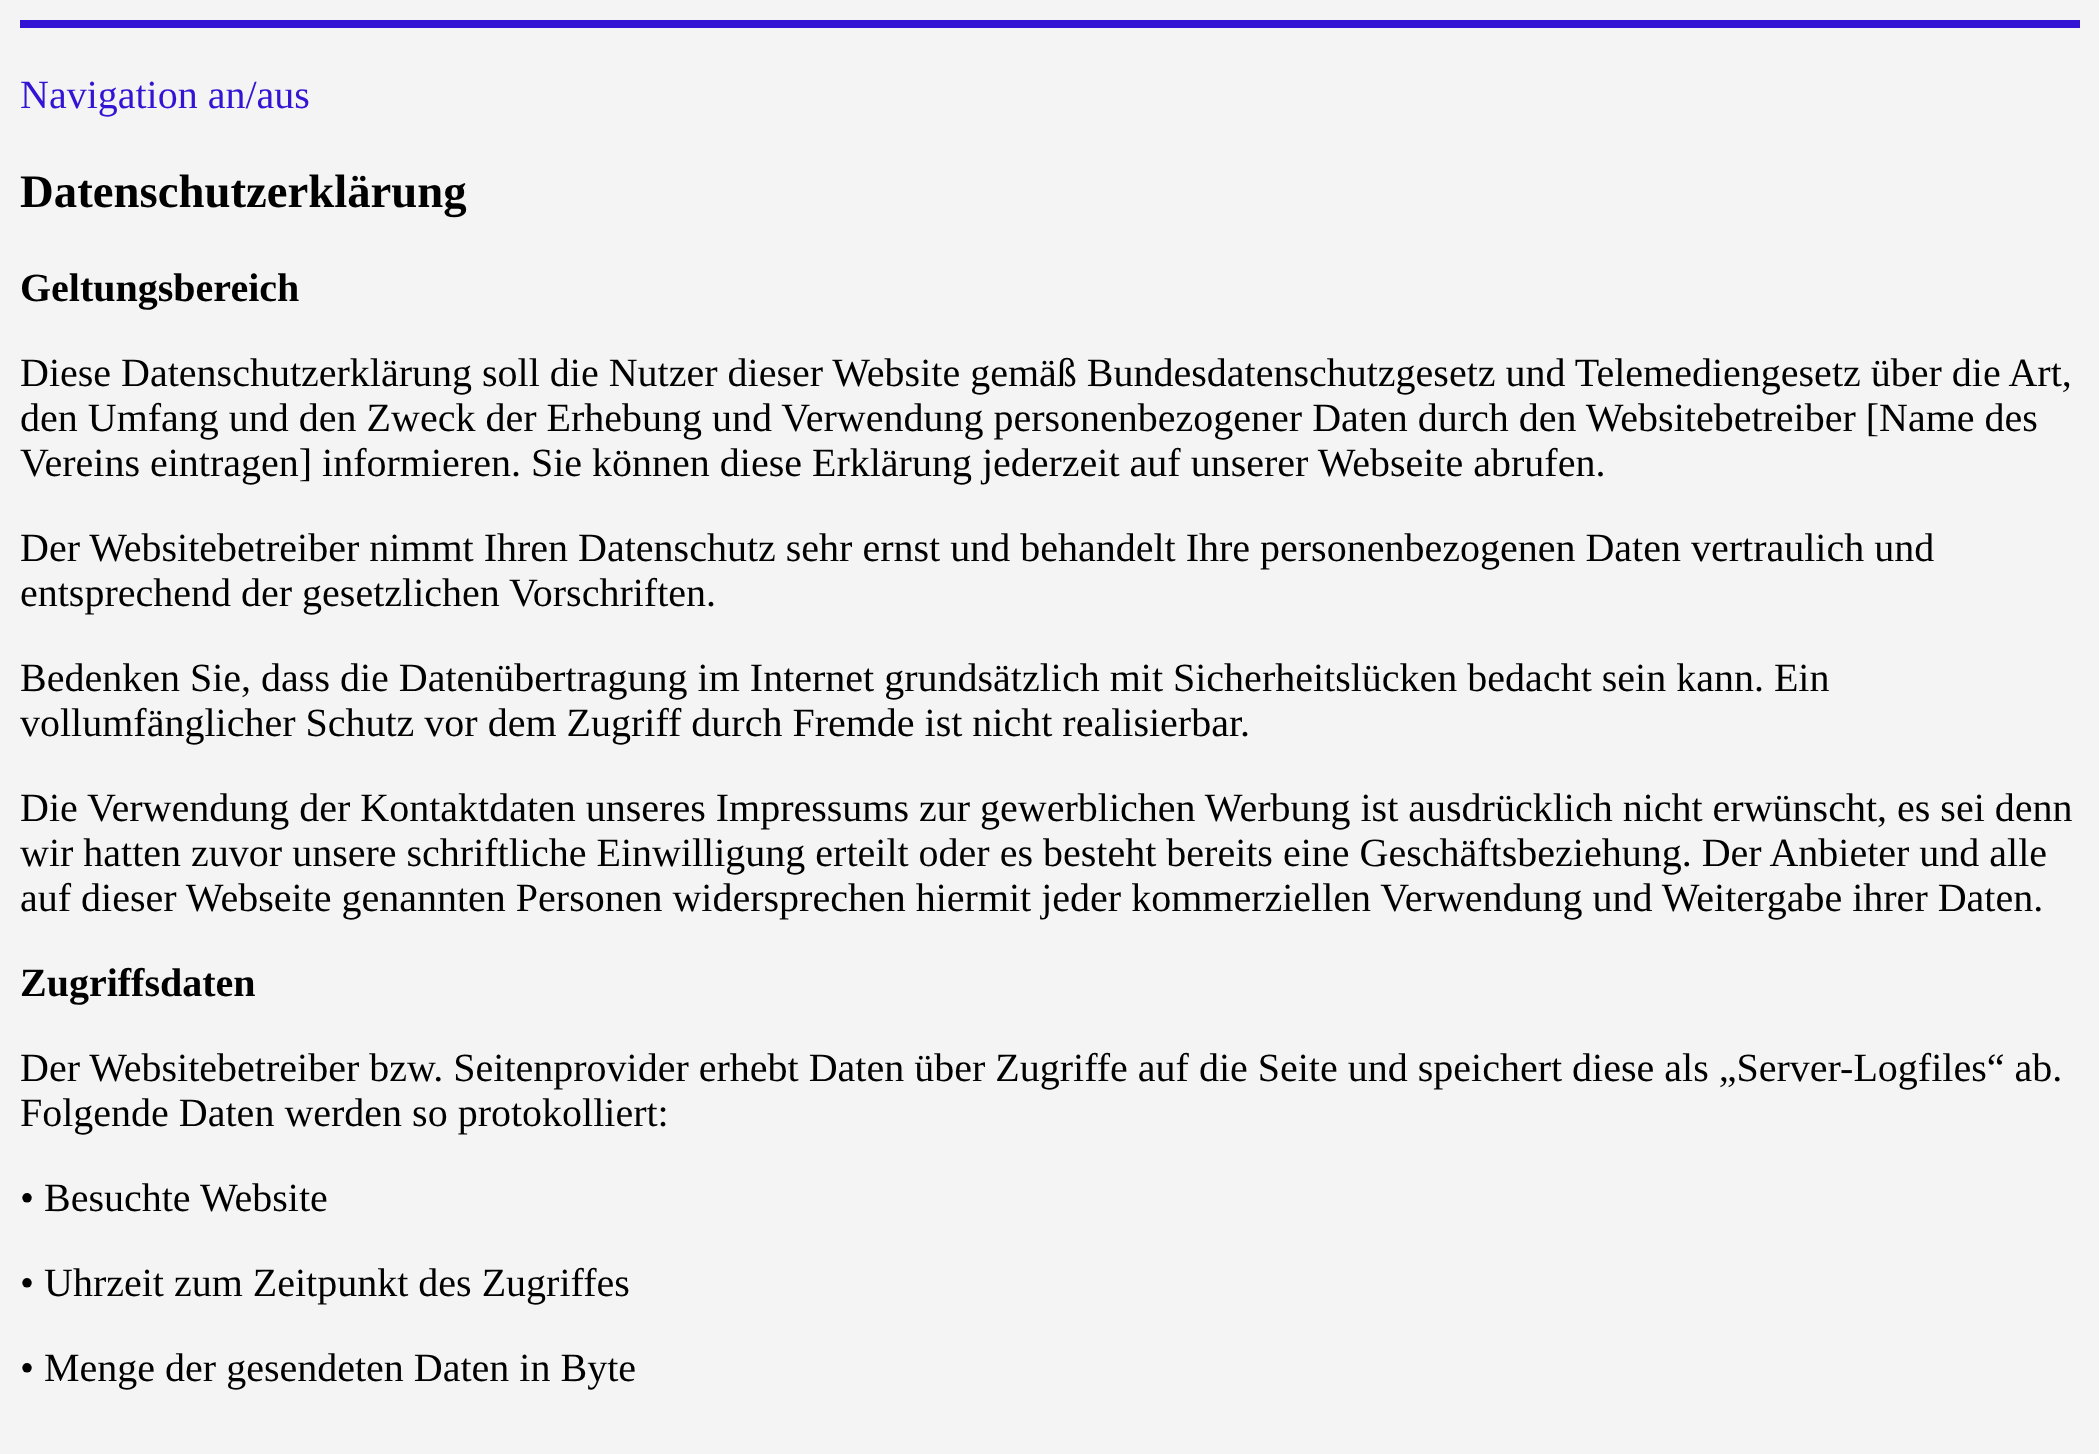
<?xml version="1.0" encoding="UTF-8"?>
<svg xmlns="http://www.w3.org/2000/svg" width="2099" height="1454">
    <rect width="100%" height="100%" fill="#F4F4F4"/>
    <rect x="20" y="20" width="2060" height="8" fill="#3313D4"/>
    <text x="20" y="108" font-family="Liberation Serif" font-size="40" fill="#3313D4">Navigation an/aus</text>
    <text x="20" y="207" font-family="Liberation Serif" font-size="46.75" font-weight="700" fill="#000000">Datenschutzerklärung</text>
    <text x="20" y="301" font-family="Liberation Serif" font-size="40" font-weight="700" fill="#000000">Geltungsbereich</text>
    <text font-family="Liberation Serif" font-size="40" fill="#000000">
        <tspan x="20" y="386">Diese Datenschutzerklärung soll die Nutzer dieser Website gemäß Bundesdatenschutzgesetz und Telemediengesetz über die Art,</tspan>
        <tspan x="20" y="431">den Umfang und den Zweck der Erhebung und Verwendung personenbezogener Daten durch den Websitebetreiber [Name des</tspan>
        <tspan x="20" y="476">Vereins eintragen] informieren. Sie können diese Erklärung jederzeit auf unserer Webseite abrufen.</tspan>
    </text>
    <text font-family="Liberation Serif" font-size="40" fill="#000000">
        <tspan x="20" y="561">Der Websitebetreiber nimmt Ihren Datenschutz sehr ernst und behandelt Ihre personenbezogenen Daten vertraulich und</tspan>
        <tspan x="20" y="606">entsprechend der gesetzlichen Vorschriften.</tspan>
    </text>
    <text font-family="Liberation Serif" font-size="40" fill="#000000">
        <tspan x="20" y="691">Bedenken Sie, dass die Datenübertragung im Internet grundsätzlich mit Sicherheitslücken bedacht sein kann. Ein</tspan>
        <tspan x="20" y="736">vollumfänglicher Schutz vor dem Zugriff durch Fremde ist nicht realisierbar.</tspan>
    </text>
    <text font-family="Liberation Serif" font-size="40" fill="#000000">
        <tspan x="20" y="821">Die Verwendung der Kontaktdaten unseres Impressums zur gewerblichen Werbung ist ausdrücklich nicht erwünscht, es sei denn</tspan>
        <tspan x="20" y="866">wir hatten zuvor unsere schriftliche Einwilligung erteilt oder es besteht bereits eine Geschäftsbeziehung. Der Anbieter und alle</tspan>
        <tspan x="20" y="911">auf dieser Webseite genannten Personen widersprechen hiermit jeder kommerziellen Verwendung und Weitergabe ihrer Daten.</tspan>
    </text>
    <text x="20" y="996" font-family="Liberation Serif" font-size="40" font-weight="700" fill="#000000">Zugriffsdaten</text>
    <text font-family="Liberation Serif" font-size="40" fill="#000000">
        <tspan x="20" y="1081">Der Websitebetreiber bzw. Seitenprovider erhebt Daten über Zugriffe auf die Seite und speichert diese als „Server-Logfiles“ ab.</tspan>
        <tspan x="20" y="1126">Folgende Daten werden so protokolliert:</tspan>
    </text>
    <text x="20" y="1211" font-family="Liberation Serif" font-size="40" fill="#000000">• Besuchte Website</text>
    <text x="20" y="1296" font-family="Liberation Serif" font-size="40" fill="#000000">• Uhrzeit zum Zeitpunkt des Zugriffes</text>
    <text x="20" y="1381" font-family="Liberation Serif" font-size="40" fill="#000000">• Menge der gesendeten Daten in Byte</text>
</svg>
